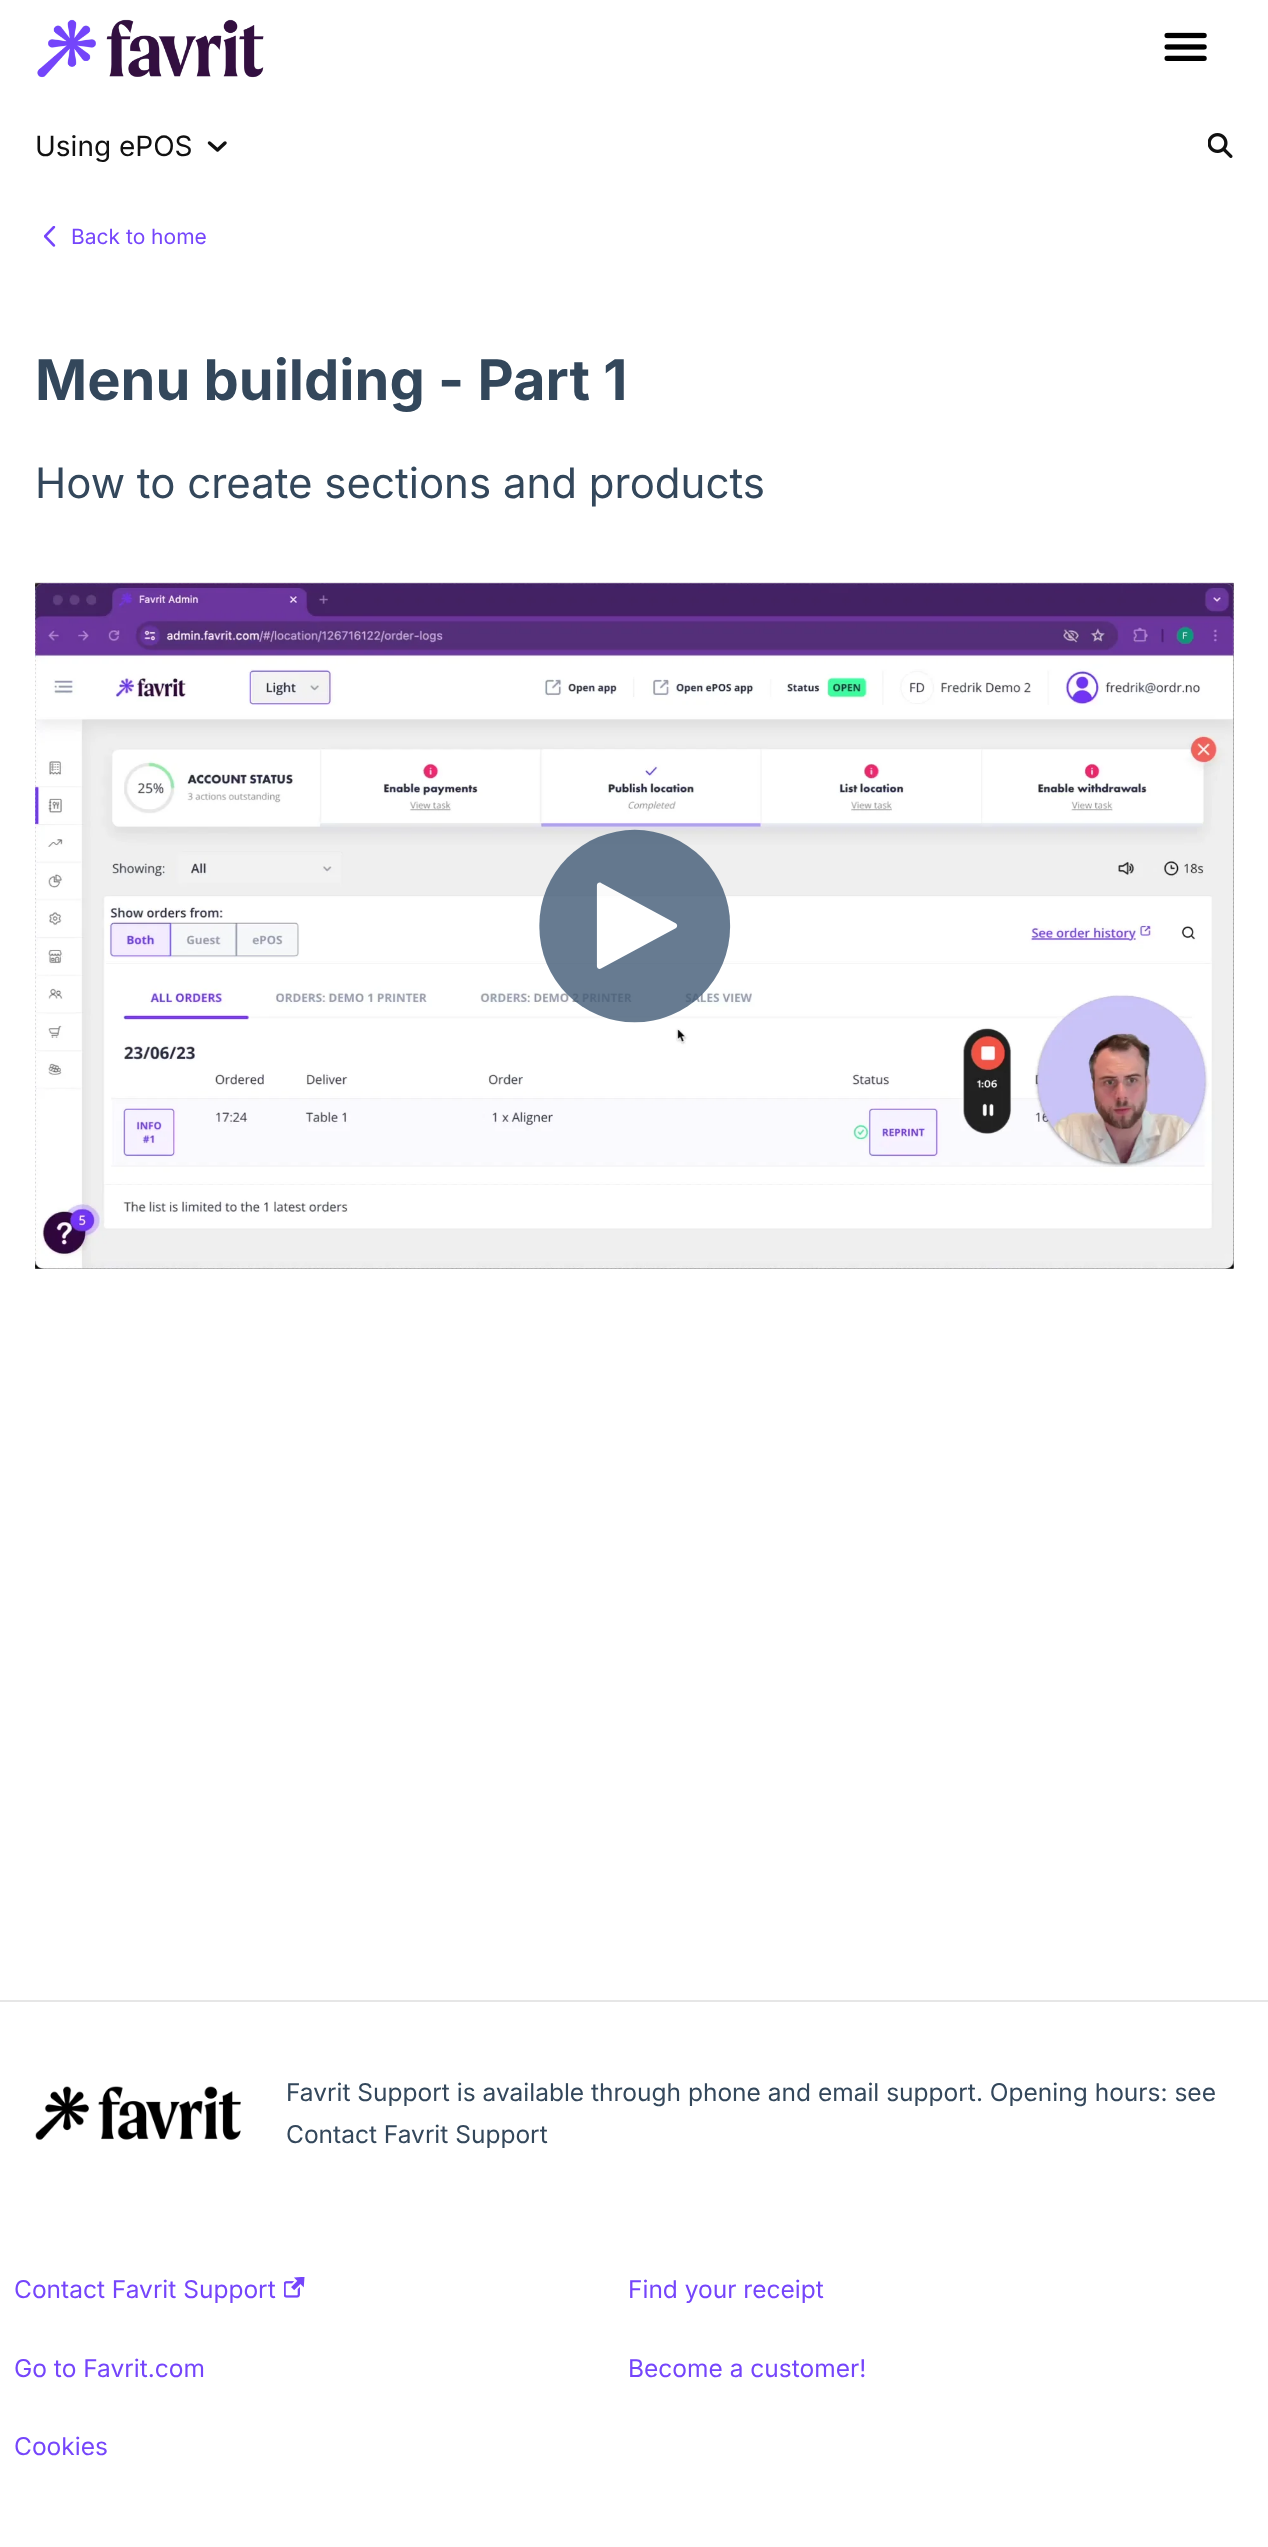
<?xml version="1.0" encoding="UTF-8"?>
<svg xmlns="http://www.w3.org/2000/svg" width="1268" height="2547">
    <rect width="100%" height="100%" fill="#FFFFFF"/>
    <image x="37" y="19" width="227" height="59" href="img_01.png"/>
    <image x="1164" y="32" width="43" height="29" href="img_02.png"/>
    <text x="35" y="156" font-family="Inter" font-size="28" fill="#111111">Using ePOS</text>
    <path d="M 225 143 L 217.5 150 L 209.5 143" fill="none" stroke="#111111" stroke-width="3.5" stroke-linecap="round" stroke-linejoin="round"/>
    <image x="1208" y="133" width="25" height="25" href="img_03.png"/>
    <image x="44" y="226" width="12" height="21" href="img_04.png"/>
    <text x="71" y="244" font-family="Inter" font-size="21" fill="#7545FB">Back to home</text>
    <text x="35" y="400" font-family="Inter" font-size="56" font-weight="700" fill="#33475B">Menu building - Part 1</text>
    <text x="35" y="498" font-family="Inter" font-size="42" fill="#33475B">How to create sections and products</text>
    <image x="35" y="582" width="1199" height="687" href="img_05.png"/>
    <rect x="0" y="2000" width="1268" height="2" fill="#E6E6E6"/>
    <image x="35" y="2086" width="206" height="54" href="img_06.png"/>
    <text font-family="Inter" font-size="24.5" fill="#33475B">
        <tspan x="286" y="2101">Favrit Support is available through phone and email support. Opening hours: see</tspan>
        <tspan x="286" y="2143">Contact Favrit Support</tspan>
    </text>
    <text x="14" y="2298" font-family="Inter" font-size="24.5" fill="#7545FB">Contact Favrit Support</text>
    <image x="284" y="2277" width="21" height="21" href="img_07.png"/>
    <text x="628" y="2298" font-family="Inter" font-size="24.5" fill="#7545FB">Find your receipt</text>
    <text x="14" y="2377" font-family="Inter" font-size="24.5" fill="#7545FB">Go to Favrit.com</text>
    <text x="628" y="2377" font-family="Inter" font-size="24.5" fill="#7545FB">Become a customer!</text>
    <text x="14" y="2455" font-family="Inter" font-size="24.5" fill="#7545FB">Cookies</text>
</svg>
